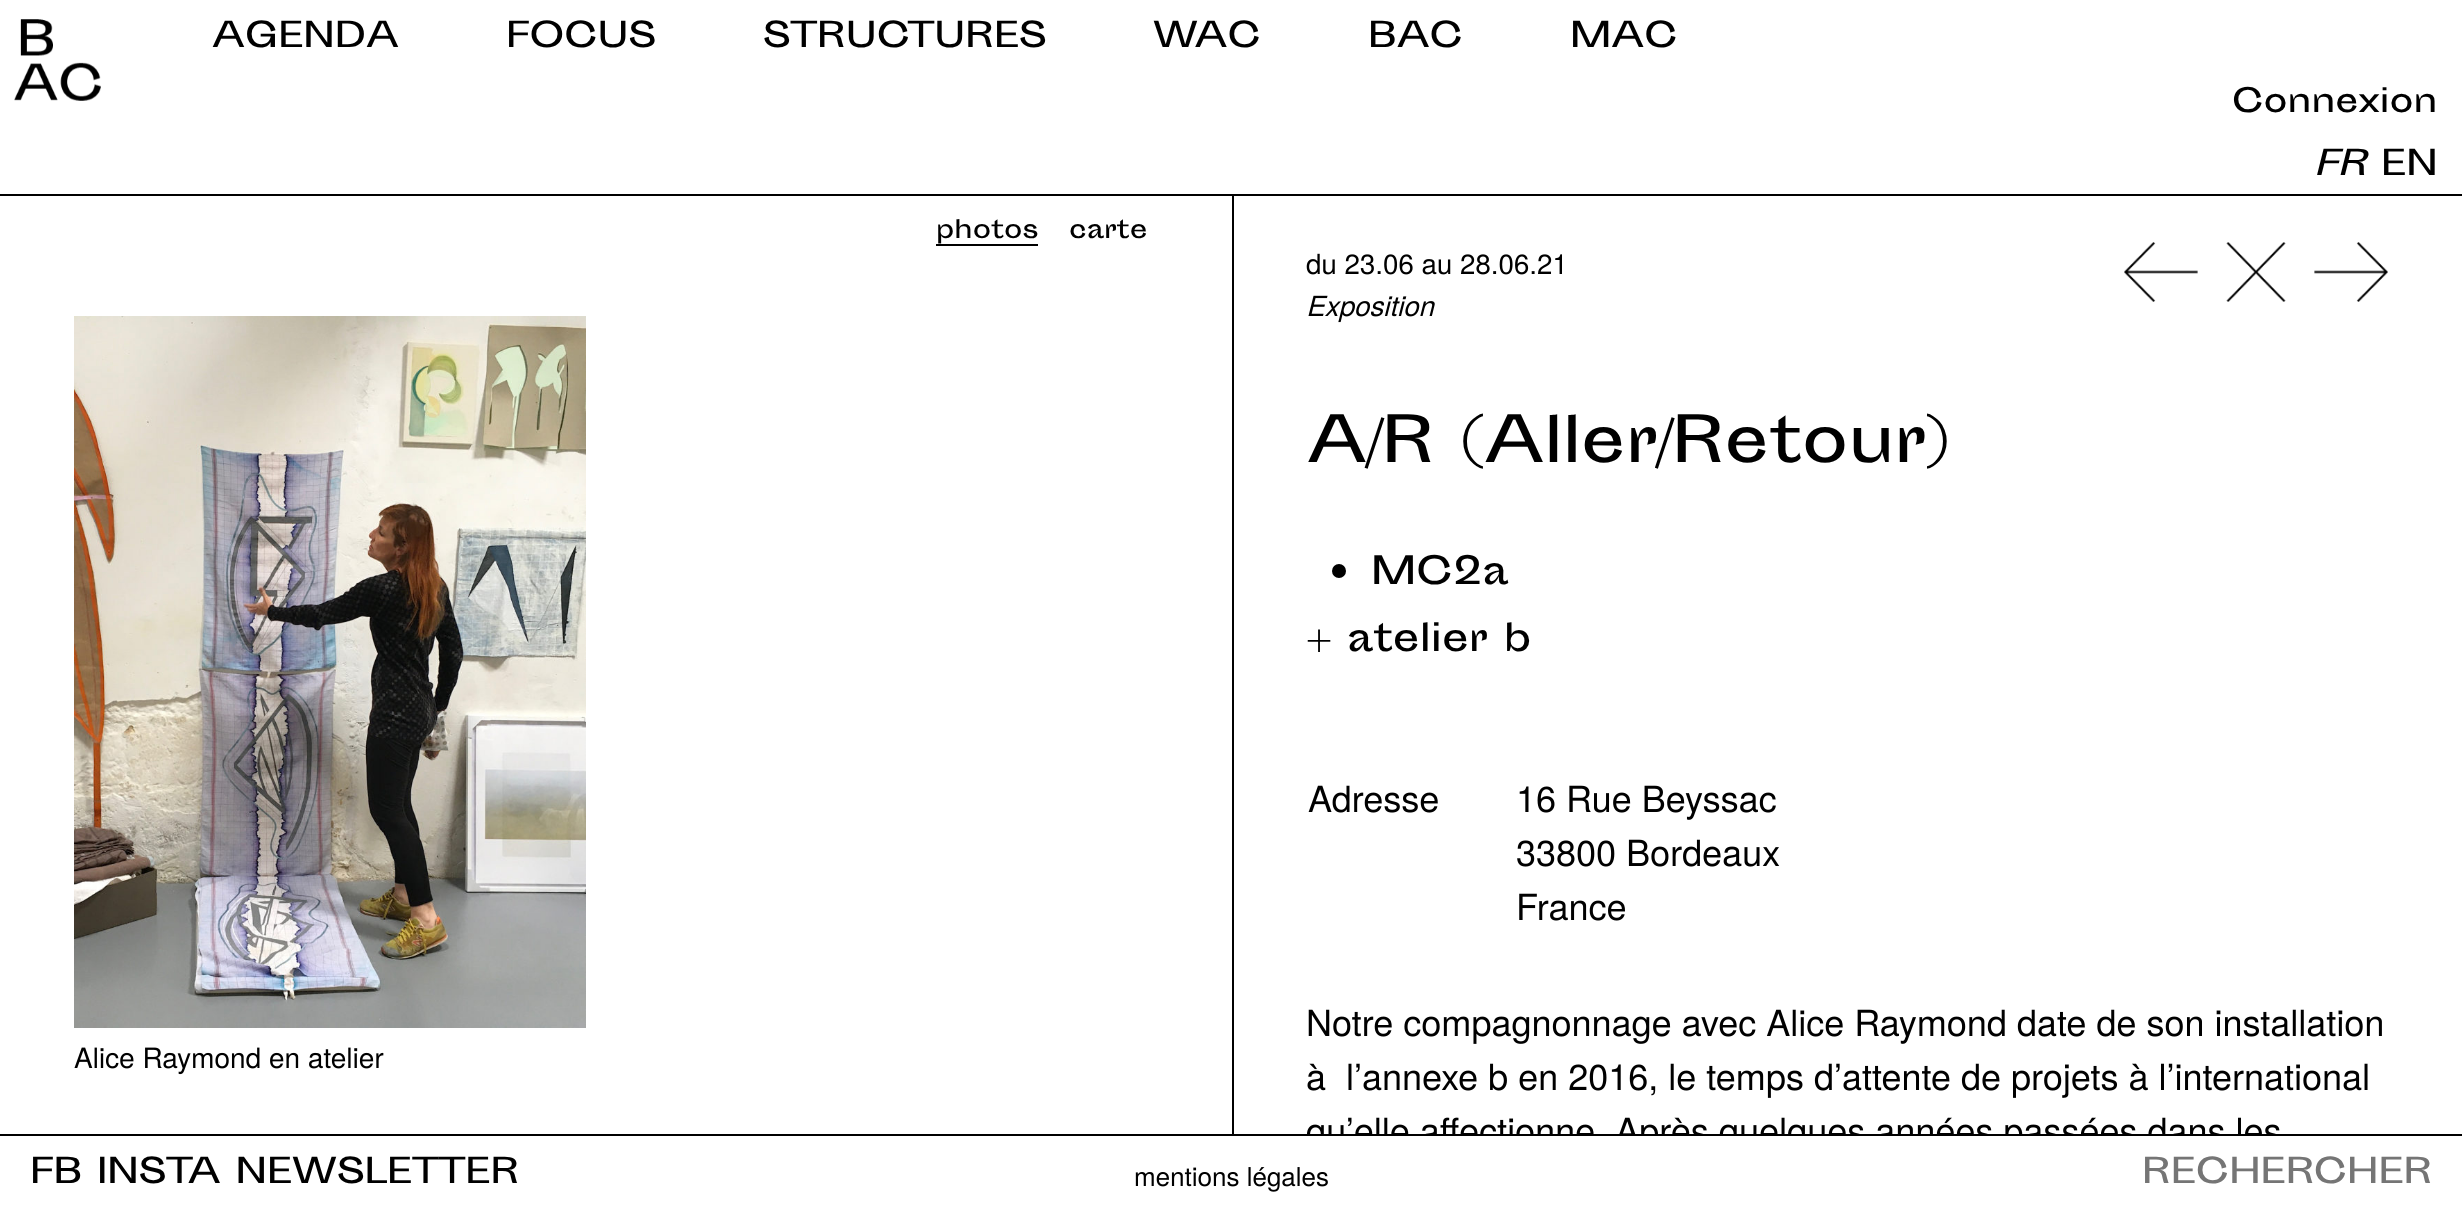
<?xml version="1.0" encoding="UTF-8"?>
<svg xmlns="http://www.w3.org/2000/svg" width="2462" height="1216">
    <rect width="100%" height="100%" fill="#FFFFFF"/>
    <rect x="1232" y="194" width="2" height="940" fill="#000000"/>
    <rect x="0" y="194" width="2462" height="2" fill="#000000"/>
    <image x="14" y="19" width="87" height="82" href="img_01.png"/>
    <text x="212" y="47" font-family="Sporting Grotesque" font-size="33.8" font-weight="500" fill="#000000">AGENDA</text>
    <text x="506" y="47" font-family="Sporting Grotesque" font-size="33.8" font-weight="500" fill="#000000">FOCUS</text>
    <text x="763" y="47" font-family="Sporting Grotesque" font-size="33.8" font-weight="500" fill="#000000">STRUCTURES</text>
    <text x="1153" y="47" font-family="Sporting Grotesque" font-size="33.8" font-weight="500" fill="#000000">WAC</text>
    <text x="1368" y="47" font-family="Sporting Grotesque" font-size="33.8" font-weight="500" fill="#000000">BAC</text>
    <text x="1570" y="47" font-family="Sporting Grotesque" font-size="33.8" font-weight="500" fill="#000000">MAC</text>
    <text x="2232" y="112" font-family="Sporting Grotesque" font-size="32" font-weight="500" fill="#000000">Connexion</text>
    <text x="2314" y="175" font-family="Sporting Grotesque" font-size="33.8" font-weight="500" font-style="italic" fill="#000000">FR</text>
    <text x="2381" y="175" font-family="Sporting Grotesque" font-size="33.8" font-weight="500" fill="#000000">EN</text>
    <rect x="936" y="244" width="102" height="2" fill="#000000"/>
    <text x="936" y="238" font-family="Sporting Grotesque" font-size="24.5" font-weight="500" fill="#000000">photos</text>
    <text x="1069" y="238" font-family="Sporting Grotesque" font-size="24.5" font-weight="500" fill="#000000">carte</text>
    <image x="74" y="316" width="512" height="712" href="img_02.png"/>
    <image x="74" y="1047" width="310" height="28" href="img_03.png"/>
    <image x="1306" y="253" width="256" height="22" href="img_04.png"/>
    <image x="1308" y="295" width="127" height="28" href="img_05.png"/>
    <image x="2124" y="242" width="74" height="60" href="img_06.png"/>
    <image x="2226" y="242" width="60" height="60" href="img_07.png"/>
    <image x="2314" y="242" width="74" height="60" href="img_08.png"/>
    <text x="1307" y="462" font-family="Sporting Grotesque" font-size="61.5" font-weight="500" fill="#000000">A/R (Aller/Retour)</text>
    <circle cx="1339" cy="571" r="7" fill="#000000"/>
    <text x="1371" y="584" font-family="Sporting Grotesque" font-size="37" font-weight="500" fill="#000000">MC2a</text>
    <text x="1307" y="651" font-family="Sporting Grotesque" font-size="37" font-weight="500" fill="#000000">+ atelier b</text>
    <image x="1308" y="785" width="130" height="28" href="img_09.png"/>
    <image x="1519" y="785" width="257" height="35" href="img_10.png"/>
    <image x="1517" y="839" width="263" height="28" href="img_11.png"/>
    <image x="1519" y="893" width="106" height="28" href="img_12.png"/>
    <image x="1308" y="1009" width="1074" height="35" href="img_13.png"/>
    <image x="1307" y="1063" width="1061" height="35" href="img_14.png"/>
    <image x="1307" y="1117" width="973" height="17" href="img_15.png"/>
    <rect x="0" y="1134" width="2462" height="2" fill="#000000"/>
    <text x="30" y="1183" font-family="Sporting Grotesque" font-size="33.8" font-weight="500" fill="#000000">FB INSTA NEWSLETTER</text>
    <image x="1135" y="1167" width="193" height="25" href="img_16.png"/>
    <text x="2142" y="1183" font-family="Sporting Grotesque" font-size="33.8" font-weight="500" fill="#757575">RECHERCHER</text>
</svg>
